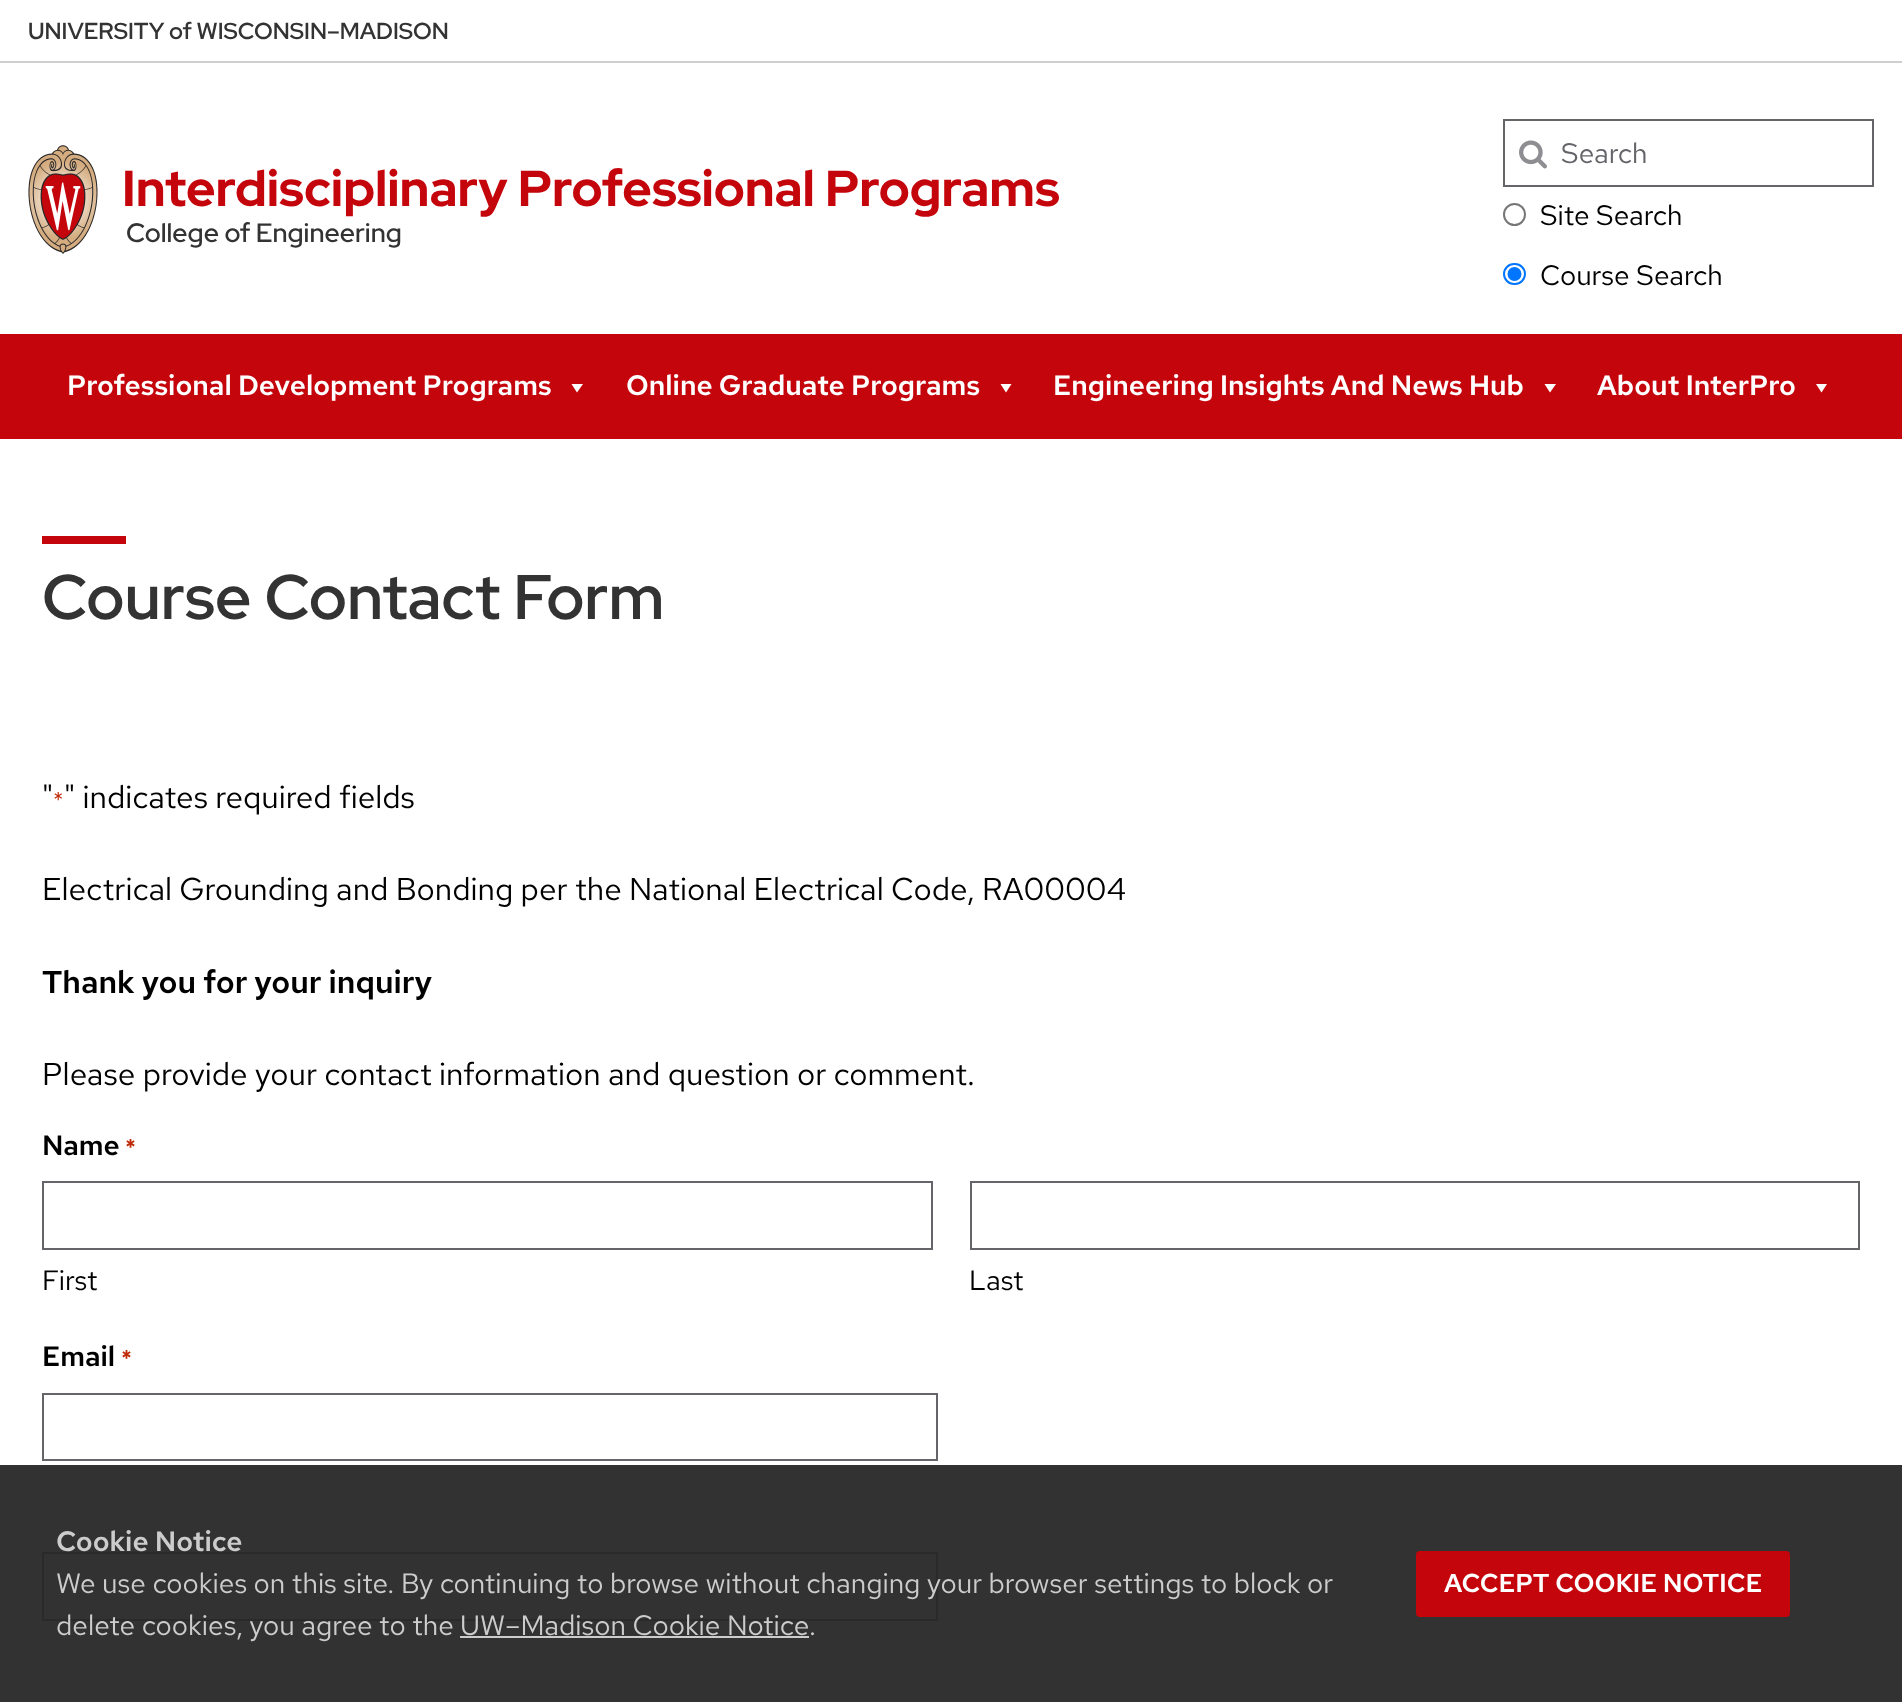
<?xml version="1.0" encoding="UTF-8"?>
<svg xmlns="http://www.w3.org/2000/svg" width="1902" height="1702">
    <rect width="100%" height="100%" fill="#FFFFFF"/>
    <rect x="0" y="1465" width="1902" height="237" fill="#333233"/>
    <rect x="0" y="61" width="1902" height="2" fill="#CFCFCF"/>
    <text x="28" y="39" font-family="'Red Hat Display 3'" font-size="23.1" font-weight="600" fill="#333333">UNIVERSITY of WISCONSIN–MADISON</text>
    <image x="28" y="145" width="70" height="109" href="img_01.png"/>
    <text x="122" y="206" font-family="Red Hat Display" font-size="50.4" font-weight="800" fill="#C5050C">Interdisciplinary Professional Programs</text>
    <text x="126" y="242" font-family="Red Hat Display" font-size="26.6" font-weight="600" fill="#333333">College of Engineering</text>
    <image x="1519" y="140" width="28" height="29" href="img_02.png"/>
    <rect x="1504" y="120" width="369" height="66" fill="none" stroke="#646569" stroke-width="2"/>
    <text x="1561" y="163" font-family="Red Hat Text" font-size="28" fill="#646569">Search</text>
    <circle cx="1514.5" cy="214.5" r="10.5" fill="none" stroke="#767676" stroke-width="2"/>
    <text x="1540" y="225" font-family="Red Hat Text" font-size="28" fill="#000000">Site Search</text>
    <rect x="1504" y="264" width="21" height="20" rx="10" fill="none" stroke="#0075FF" stroke-width="2"/>
    <circle cx="1514.5" cy="274" r="7" fill="#0075FF"/>
    <text x="1540" y="285" font-family="Red Hat Text" font-size="28" fill="#000000">Course Search</text>
    <rect x="0" y="334" width="1902" height="105" fill="#C5050C"/>
    <text x="67" y="395" font-family="Red Hat Text" font-size="28" font-weight="600" fill="#FFFFFF">Professional Development Programs</text>
    <path d="M 583 384 L 577 392.5 L 571.5 384 Z" fill="#FFFFFF"/>
    <text x="626" y="395" font-family="Red Hat Text" font-size="28" font-weight="600" fill="#FFFFFF">Online Graduate Programs</text>
    <path d="M 1011.5 384 L 1006 392.5 L 1000.5 384 Z" fill="#FFFFFF"/>
    <text x="1053" y="395" font-family="Red Hat Text" font-size="28" font-weight="600" fill="#FFFFFF">Engineering Insights And News Hub</text>
    <path d="M 1556 384 L 1550 392.5 L 1544.5 384 Z" fill="#FFFFFF"/>
    <text x="1597" y="395" font-family="Red Hat Text" font-size="28" font-weight="600" fill="#FFFFFF">About InterPro</text>
    <path d="M 1827 384 L 1821.5 392.5 L 1816 384 Z" fill="#FFFFFF"/>
    <rect x="42" y="536" width="84" height="8" fill="#C5050C"/>
    <text x="42" y="619" font-family="'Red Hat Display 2'" font-size="63" font-weight="600" fill="#333333">Course Contact Form</text>
    <text x="42" y="808" font-family="Red Hat Text" font-size="31.5" fill="#000000">"</text>
    <text x="53" y="808" font-family="Red Hat Text" font-size="23" fill="#C02B0A">*</text>
    <text x="64" y="808" font-family="Red Hat Text" font-size="31.5" fill="#000000">" indicates required fields</text>
    <text x="42" y="900" font-family="Red Hat Text" font-size="31.5" fill="#000000">Electrical Grounding and Bonding per the National Electrical Code, RA00004</text>
    <text x="42" y="993" font-family="Red Hat Text" font-size="31.5" font-weight="600" fill="#000000">Thank you for your inquiry</text>
    <text x="42" y="1085" font-family="Red Hat Text" font-size="31.5" fill="#000000">Please provide your contact information and question or comment.</text>
    <text x="42" y="1155" font-family="Red Hat Text" font-size="28" font-weight="600" fill="#000000">Name</text>
    <text x="125" y="1155" font-family="Red Hat Text" font-size="23" font-weight="600" fill="#C02B0A">*</text>
    <rect x="43" y="1182" width="889" height="67" fill="none" stroke="#646569" stroke-width="2"/>
    <text x="42" y="1290" font-family="Red Hat Text" font-size="28" fill="#000000">First</text>
    <rect x="971" y="1182" width="888" height="67" fill="none" stroke="#646569" stroke-width="2"/>
    <text x="969" y="1290" font-family="Red Hat Text" font-size="28" fill="#000000">Last</text>
    <text x="42" y="1366" font-family="Red Hat Text" font-size="28" font-weight="600" fill="#000000">Email</text>
    <text x="121" y="1366" font-family="Red Hat Text" font-size="23" font-weight="600" fill="#C02B0A">*</text>
    <rect x="43" y="1394" width="894" height="66" fill="none" stroke="#646569" stroke-width="2"/>
    <rect x="43" y="1553" width="894" height="67" fill="none" stroke="#2B2A2B" stroke-width="2"/>
    <text x="56" y="1551" font-family="Red Hat Text" font-size="28" font-weight="600" fill="#CCCCCC">Cookie Notice</text>
    <text font-family="Red Hat Text" font-size="28" fill="#CCCCCC">
        <tspan x="56" y="1593">We use cookies on this site. By continuing to browse without changing your browser settings to block or</tspan>
        <tspan x="56" y="1635">delete cookies, you agree to the</tspan>
    </text>
    <text x="460" y="1635" font-family="Red Hat Text" font-size="28" fill="#CCCCCC">UW–Madison Cookie Notice</text>
    <rect x="460" y="1636" width="349" height="2" fill="#CCCCCC"/>
    <text x="809" y="1635" font-family="Red Hat Text" font-size="28" fill="#CCCCCC">.</text>
    <rect x="1416" y="1551" width="374" height="66" rx="4" fill="#C5050C"/>
    <text x="1444" y="1592" font-family="Red Hat Text" font-size="25.9" font-weight="600" fill="#FFFFFF">ACCEPT COOKIE NOTICE</text>
</svg>
